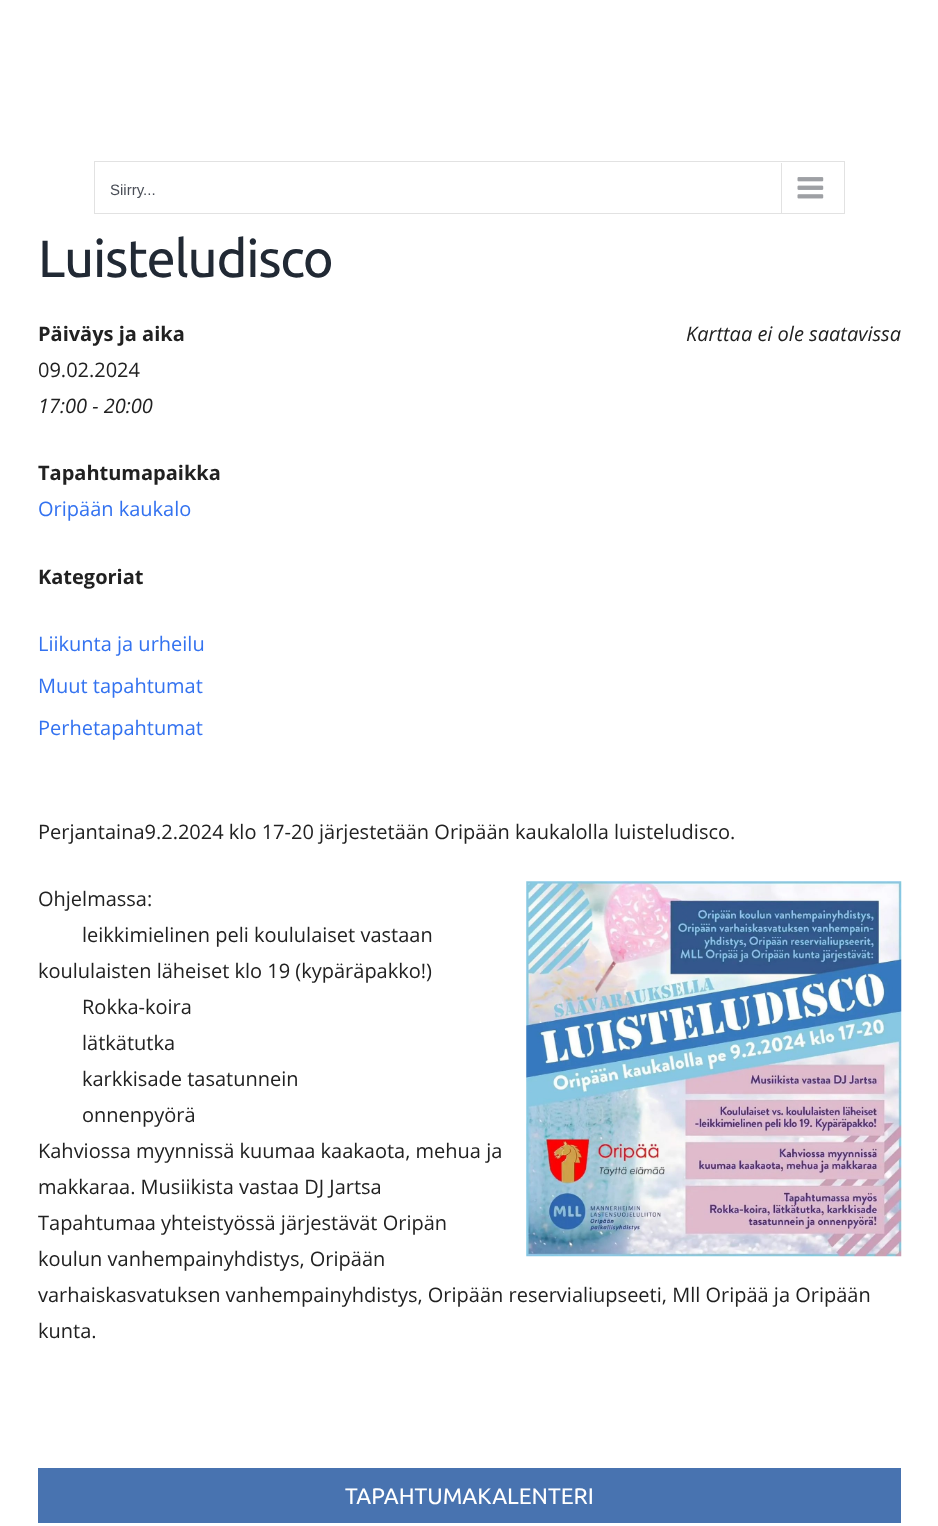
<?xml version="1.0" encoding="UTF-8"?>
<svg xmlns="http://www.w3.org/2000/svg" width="938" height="1526">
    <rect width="100%" height="100%" fill="#FFFFFF"/>
    <image x="0" y="0" width="938" height="188" href="img_01.png"/>
    <rect x="94.5" y="161.5" width="750" height="52" fill="none" stroke="#E2E2E2"/>
    <text x="110" y="195" font-family="Liberation Sans" font-size="15" fill="#4A4E57">Siirry...</text>
    <rect x="781" y="163" width="1" height="50" fill="#E2E2E2"/>
    <image x="797" y="177" width="27" height="22" href="img_02.png"/>
    <text x="38" y="277" font-family="Ubuntu" font-size="52.5" letter-spacing="-1.25" fill="#212934">Luisteludisco</text>
    <text x="38" y="341" font-family="Open Sans" font-size="20" font-weight="700" fill="#212121">Päiväys ja aika</text>
    <text x="38" y="377" font-family="Open Sans" font-size="20" fill="#212121">09.02.2024</text>
    <text x="38" y="413" font-family="Open Sans" font-size="20" font-style="italic" fill="#212121">17:00 - 20:00</text>
    <text x="686" y="341" font-family="Open Sans" font-size="20" font-style="italic" fill="#212121">Karttaa ei ole saatavissa</text>
    <text x="38" y="480" font-family="Open Sans" font-size="20" font-weight="700" fill="#212121">Tapahtumapaikka</text>
    <text x="38" y="516" font-family="Open Sans" font-size="20" fill="#3372F0">Oripään kaukalo</text>
    <text x="38" y="584" font-family="Open Sans" font-size="20" font-weight="700" fill="#212121">Kategoriat</text>
    <text x="38" y="651" font-family="Open Sans" font-size="20" fill="#3372F0">Liikunta ja urheilu</text>
    <text x="38" y="693" font-family="Open Sans" font-size="20" fill="#3372F0">Muut tapahtumat</text>
    <text x="38" y="735" font-family="Open Sans" font-size="20" fill="#3372F0">Perhetapahtumat</text>
    <text x="38" y="839" font-family="Open Sans" font-size="20" fill="#212121">Perjantaina9.2.2024 klo 17-20 järjestetään Oripään kaukalolla luisteludisco.</text>
    <text x="38" y="906" font-family="Open Sans" font-size="20" fill="#212121">Ohjelmassa:</text>
    <text x="82" y="942" font-family="Open Sans" font-size="20" fill="#212121">leikkimielinen peli koululaiset vastaan</text>
    <text x="38" y="978" font-family="Open Sans" font-size="20" fill="#212121">koululaisten läheiset klo 19 (kypäräpakko!)</text>
    <text font-family="Open Sans" font-size="20" fill="#212121">
        <tspan x="82" y="1014">Rokka-koira</tspan>
        <tspan x="82" y="1050">lätkätutka</tspan>
        <tspan x="82" y="1086">karkkisade tasatunnein</tspan>
        <tspan x="82" y="1122">onnenpyörä</tspan>
    </text>
    <image x="526" y="881" width="376" height="376" href="img_03.png"/>
    <text font-family="Open Sans" font-size="20" fill="#212121">
        <tspan x="38" y="1158">Kahviossa myynnissä kuumaa kaakaota, mehua ja</tspan>
        <tspan x="38" y="1194">makkaraa. Musiikista vastaa DJ Jartsa</tspan>
        <tspan x="38" y="1230">Tapahtumaa yhteistyössä järjestävät Oripän</tspan>
        <tspan x="38" y="1266">koulun vanhempainyhdistys, Oripään</tspan>
        <tspan x="38" y="1302">varhaiskasvatuksen vanhempainyhdistys, Oripään reservialiupseeti, Mll Oripää ja Oripään</tspan>
        <tspan x="38" y="1338">kunta.</tspan>
    </text>
    <rect x="38" y="1468" width="863" height="55" fill="#4873B0"/>
    <text x="345" y="1504" font-family="Ubuntu" font-size="22.5" fill="#FFFFFF">TAPAHTUMAKALENTERI</text>
</svg>
